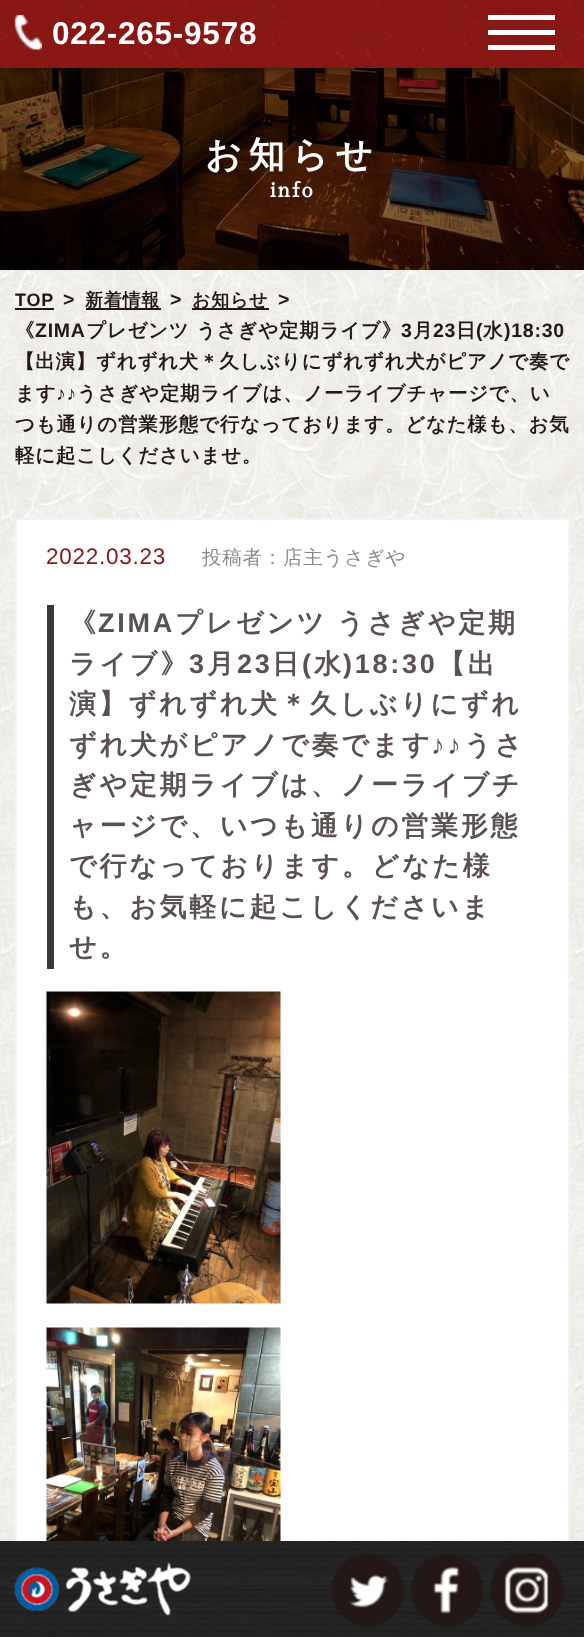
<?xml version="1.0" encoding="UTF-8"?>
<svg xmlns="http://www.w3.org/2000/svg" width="584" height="1637">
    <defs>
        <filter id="blur1" x="-50%" y="-200%" width="200%" height="500%"><feGaussianBlur stdDeviation="5"/></filter>
    </defs>
    <rect width="100%" height="100%" fill="#FFFFFF"/>
    <image x="0" y="270" width="584" height="1271" href="img_01.png"/>
    <rect x="17" y="520" width="551" height="1021" fill="#FFFFFF"/>
    <rect x="16" y="519" width="553" height="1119" fill="none" stroke="#F3F3F3" stroke-width="2"/>
    <image x="0" y="1541" width="584" height="96" href="img_02.png"/>
    <image x="0" y="68" width="584" height="202" href="img_09.png"/>
    <rect x="12" y="26" width="561" height="43" fill="#000000" fill-opacity="0.5" filter="url(#blur1)"/>
    <image x="0" y="0" width="584" height="68" href="img_07.png"/>
    <rect x="488" y="30" width="67" height="5" fill="#FFFFFF"/>
    <rect x="488" y="12" width="67" height="18" fill="#891815"/>
    <rect x="488" y="35" width="67" height="22" fill="#891815"/>
    <rect x="488" y="15" width="67" height="5" fill="#FFFFFF"/>
    <rect x="488" y="45" width="67" height="5" fill="#FFFFFF"/>
    <image x="14" y="1562" width="177" height="54" href="img_03.png"/>
    <image x="331" y="1553" width="73" height="74" href="img_04.png"/>
    <image x="411" y="1553" width="72" height="74" href="img_05.png"/>
    <image x="490" y="1553" width="75" height="74" href="img_06.png"/>
    <image x="14" y="15" width="28" height="35" href="img_08.png"/>
    <text x="52" y="44" font-family="Liberation Sans" font-size="31.5" font-weight="700" letter-spacing="0.75" fill="#FFFFFF">022-265-9578</text>
    <text x="205" y="167" font-family="WenQuanYi Zen Hei" font-size="36" font-weight="700" letter-spacing="7" fill="#FFFFFF">お知らせ</text>
    <text x="270" y="197" font-family="Sawarabi Mincho" font-size="19.5" font-weight="700" letter-spacing="2" fill="#FFFFFF">info</text>
    <text x="15" y="306" font-family="Liberation Sans" font-size="18" font-weight="700" letter-spacing="0.75" fill="#231815">TOP</text>
    <rect x="15" y="308" width="39" height="2" fill="#231815"/>
    <text x="63" y="306" font-family="Liberation Sans" font-size="19.5" font-weight="700" letter-spacing="0.75" fill="#231815">&gt;</text>
    <rect x="86" y="308" width="75" height="2" fill="#231815"/>
    <text x="85" y="306" font-family="WenQuanYi Zen Hei" font-size="18" font-weight="700" letter-spacing="0.75" fill="#231815">新着情報</text>
    <text x="170" y="306" font-family="Liberation Sans" font-size="19.5" font-weight="700" letter-spacing="0.75" fill="#231815">&gt;</text>
    <rect x="192" y="308" width="77" height="2" fill="#231815"/>
    <text x="192" y="306" font-family="WenQuanYi Zen Hei" font-size="18" font-weight="700" letter-spacing="0.75" fill="#231815">お知らせ</text>
    <text x="278" y="306" font-family="Liberation Sans" font-size="19.5" font-weight="700" letter-spacing="0.75" fill="#231815">&gt;</text>
    <text x="15" y="337" font-family="WenQuanYi Zen Hei" font-size="19.5" font-weight="700" letter-spacing="0.75" fill="#231815">《</text>
    <text x="35" y="337" font-family="Liberation Sans" font-size="19.5" font-weight="700" letter-spacing="0.75" fill="#231815">ZIMA</text>
    <text x="86" y="337" font-family="WenQuanYi Zen Hei" font-size="19.5" font-weight="700" letter-spacing="0.75" fill="#231815">プレゼンツ うさぎや定期ライブ》</text>
    <text x="401" y="337" font-family="Liberation Sans" font-size="19.5" font-weight="700" letter-spacing="0.75" fill="#231815">3</text>
    <text x="413" y="337" font-family="WenQuanYi Zen Hei" font-size="19.5" font-weight="700" letter-spacing="0.75" fill="#231815">月</text>
    <text x="433" y="337" font-family="Liberation Sans" font-size="19.5" font-weight="700" letter-spacing="0.75" fill="#231815">23</text>
    <text x="456" y="337" font-family="WenQuanYi Zen Hei" font-size="19.5" font-weight="700" letter-spacing="0.75" fill="#231815">日</text>
    <text x="476" y="337" font-family="Liberation Sans" font-size="19.5" font-weight="700" letter-spacing="0.75" fill="#231815">(</text>
    <text x="483" y="337" font-family="WenQuanYi Zen Hei" font-size="19.5" font-weight="700" letter-spacing="0.75" fill="#231815">水</text>
    <text x="504" y="337" font-family="Liberation Sans" font-size="19.5" font-weight="700" letter-spacing="0.75" fill="#231815">)18:30</text>
    <text font-family="WenQuanYi Zen Hei" font-size="19.5" font-weight="700" letter-spacing="0.75" fill="#231815">
        <tspan x="15" y="368">【出演】ずれずれ犬＊久しぶりにずれずれ犬がピアノで奏で</tspan>
        <tspan x="15" y="400">ます</tspan>
    </text>
    <text x="56" y="400" font-family="Liberation Sans" font-size="19.5" font-weight="700" letter-spacing="0.75" fill="#231815">♪♪</text>
    <text x="77" y="400" font-family="WenQuanYi Zen Hei" font-size="19.5" font-weight="700" letter-spacing="0.75" fill="#231815">うさぎや定期ライブは、ノーライブチャージで、い</text>
    <text font-family="WenQuanYi Zen Hei" font-size="19.5" font-weight="700" letter-spacing="0.75" fill="#231815">
        <tspan x="15" y="431">つも通りの営業形態で行なっております。どなた様も、お気</tspan>
        <tspan x="15" y="462">軽に起こしくださいませ。</tspan>
    </text>
    <text x="46" y="564" font-family="Liberation Sans" font-size="22.5" letter-spacing="0.75" fill="#87191B">2022.03.23</text>
    <text x="202" y="564" font-family="WenQuanYi Zen Hei" font-size="19.5" font-weight="500" letter-spacing="0.75" fill="#8B8B8B">投稿者：店主うさぎや</text>
    <rect x="47" y="605" width="7" height="364" fill="#393939"/>
    <text x="69" y="632" font-family="WenQuanYi Zen Hei" font-size="27" font-weight="700" letter-spacing="2.75" fill="#5B5151">《</text>
    <text x="98" y="632" font-family="Liberation Sans" font-size="27" font-weight="700" letter-spacing="2.75" fill="#5B5151">ZIMA</text>
    <text x="175" y="632" word-spacing="-1" font-family="WenQuanYi Zen Hei" font-size="27" font-weight="700" letter-spacing="2.75" fill="#5B5151">プレゼンツ うさぎや定期</text>
    <text x="69" y="673" font-family="WenQuanYi Zen Hei" font-size="27" font-weight="700" letter-spacing="2.75" fill="#5B5151">ライブ》</text>
    <text x="189" y="673" font-family="Liberation Sans" font-size="27" font-weight="700" letter-spacing="2.75" fill="#5B5151">3</text>
    <text x="207" y="673" font-family="WenQuanYi Zen Hei" font-size="27" font-weight="700" letter-spacing="2.75" fill="#5B5151">月</text>
    <text x="237" y="673" font-family="Liberation Sans" font-size="27" font-weight="700" letter-spacing="2.75" fill="#5B5151">23</text>
    <text x="272" y="673" font-family="WenQuanYi Zen Hei" font-size="27" font-weight="700" letter-spacing="2.75" fill="#5B5151">日</text>
    <text x="302" y="673" font-family="Liberation Sans" font-size="27" font-weight="700" letter-spacing="2.75" fill="#5B5151">(</text>
    <text x="314" y="673" font-family="WenQuanYi Zen Hei" font-size="27" font-weight="700" letter-spacing="2.75" fill="#5B5151">水</text>
    <text x="343" y="673" font-family="Liberation Sans" font-size="27" font-weight="700" letter-spacing="2.75" fill="#5B5151">)18:30</text>
    <text x="438" y="673" font-family="WenQuanYi Zen Hei" font-size="27" font-weight="700" letter-spacing="2.75" fill="#5B5151">【出</text>
    <text font-family="WenQuanYi Zen Hei" font-size="27" font-weight="700" letter-spacing="2.75" fill="#5B5151">
        <tspan x="69" y="713">演】ずれずれ犬＊久しぶりにずれ</tspan>
        <tspan x="69" y="754">ずれ犬がピアノで奏でます</tspan>
    </text>
    <text x="431" y="754" font-family="Liberation Sans" font-size="27" font-weight="700" letter-spacing="2.75" fill="#5B5151">♪♪</text>
    <text x="464" y="754" font-family="WenQuanYi Zen Hei" font-size="27" font-weight="700" letter-spacing="2.75" fill="#5B5151">うさ</text>
    <text font-family="WenQuanYi Zen Hei" font-size="27" font-weight="700" letter-spacing="2.75" fill="#5B5151">
        <tspan x="69" y="794">ぎや定期ライブは、ノーライブチ</tspan>
        <tspan x="69" y="835">ャージで、いつも通りの営業形態</tspan>
        <tspan x="69" y="875">で行なっております。どなた様</tspan>
        <tspan x="69" y="916">も、お気軽に起こしくださいま</tspan>
        <tspan x="69" y="956">せ。</tspan>
    </text>
    <image x="46" y="991" width="235" height="313" href="img_10.png"/>
    <image x="46" y="1327" width="235" height="214" href="img_11.png"/>
</svg>
